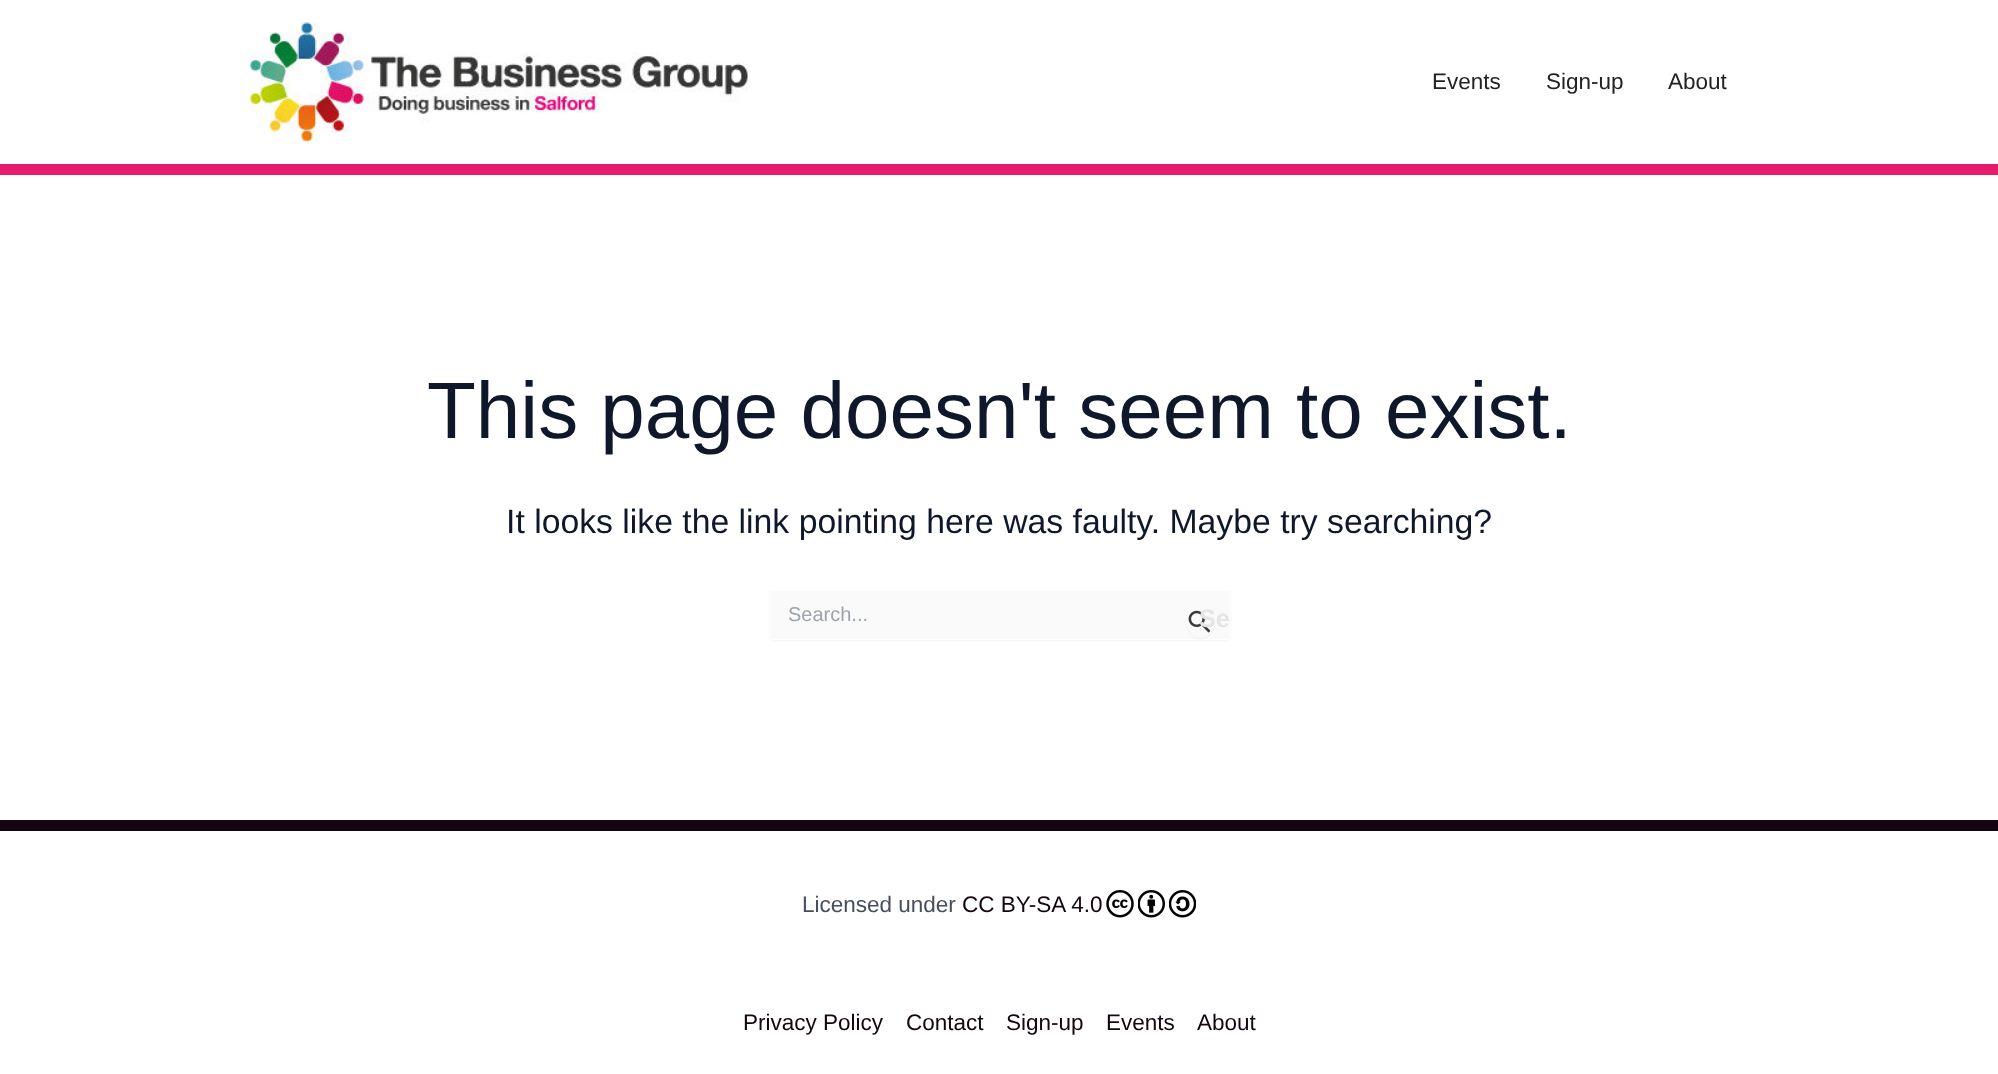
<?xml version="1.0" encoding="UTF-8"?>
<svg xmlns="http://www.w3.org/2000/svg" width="1998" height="1074">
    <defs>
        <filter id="blur1" x="-50%" y="-200%" width="200%" height="500%"><feGaussianBlur stdDeviation="1"/></filter>
        <clipPath id="clip1"><path d="M 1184 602 H 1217 V 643 H 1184 Z M 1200.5 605 C 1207.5 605 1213 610.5 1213 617.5 V 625.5 C 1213 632.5 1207.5 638 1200.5 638 C 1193.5 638 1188 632.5 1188 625.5 V 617.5 C 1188 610.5 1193.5 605 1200.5 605 Z" clip-rule="evenodd"/></clipPath>
    </defs>
    <rect width="100%" height="100%" fill="#FFFFFF"/>
    <rect x="0" y="164" width="1998" height="11" fill="#E41C6B"/>
    <image x="250" y="22" width="498" height="120" href="img_01.png"/>
    <text x="1432" y="89" font-family="Liberation Sans" font-size="22.5" fill="#222222">Events</text>
    <text x="1546" y="89" font-family="Liberation Sans" font-size="22.5" fill="#222222">Sign-up</text>
    <text x="1668" y="89" font-family="Liberation Sans" font-size="22.5" fill="#222222">About</text>
    <text x="427" y="438" font-family="Liberation Sans" font-size="80" fill="#0F172A">This page doesn't seem to exist.</text>
    <text x="506" y="533" font-family="Liberation Sans" font-size="33.75" fill="#0F172A">It looks like the link pointing here was faulty. Maybe try searching?</text>
    <rect x="769" y="591" width="462" height="50" rx="2.5" fill="#000000" fill-opacity="0.05" filter="url(#blur1)"/>
    <rect x="769.5" y="590.5" width="461" height="49" rx="2" fill="#FAFAFA" stroke="#FFFFFF"/>
    <text x="788" y="621" font-family="Liberation Sans" font-size="20" fill="#9CA3AF">Search...</text>
    <g clip-path="url(#clip1)">
        <rect x="1188" y="606" width="25" height="33" rx="12.5" fill="#000000" fill-opacity="0.05" filter="url(#blur1)"/>
    </g>
    <image x="1188" y="610" width="22" height="23" href="img_02.png"/>
    <text x="1199" y="627" font-family="Liberation Sans" font-size="25" font-weight="700" fill="#E5E5E5">Se</text>
    <rect x="0" y="820" width="1998" height="11" fill="#140610"/>
    <text x="802" y="912" font-family="Liberation Sans" font-size="22.5" fill="#454F5E">Licensed under</text>
    <text x="962" y="912" font-family="Liberation Sans" font-size="22.5" fill="#140610">CC BY-SA 4.0</text>
    <image x="1106" y="890" width="28" height="28" href="img_03.png"/>
    <image x="1138" y="890" width="27" height="28" href="img_04.png"/>
    <image x="1169" y="890" width="27" height="28" href="img_05.png"/>
    <text x="743" y="1030" font-family="Liberation Sans" font-size="22.5" fill="#140610">Privacy Policy</text>
    <text x="906" y="1030" font-family="Liberation Sans" font-size="22.5" fill="#140610">Contact</text>
    <text x="1006" y="1030" font-family="Liberation Sans" font-size="22.5" fill="#140610">Sign-up</text>
    <text x="1106" y="1030" font-family="Liberation Sans" font-size="22.5" fill="#140610">Events</text>
    <text x="1197" y="1030" font-family="Liberation Sans" font-size="22.5" fill="#140610">About</text>
</svg>
